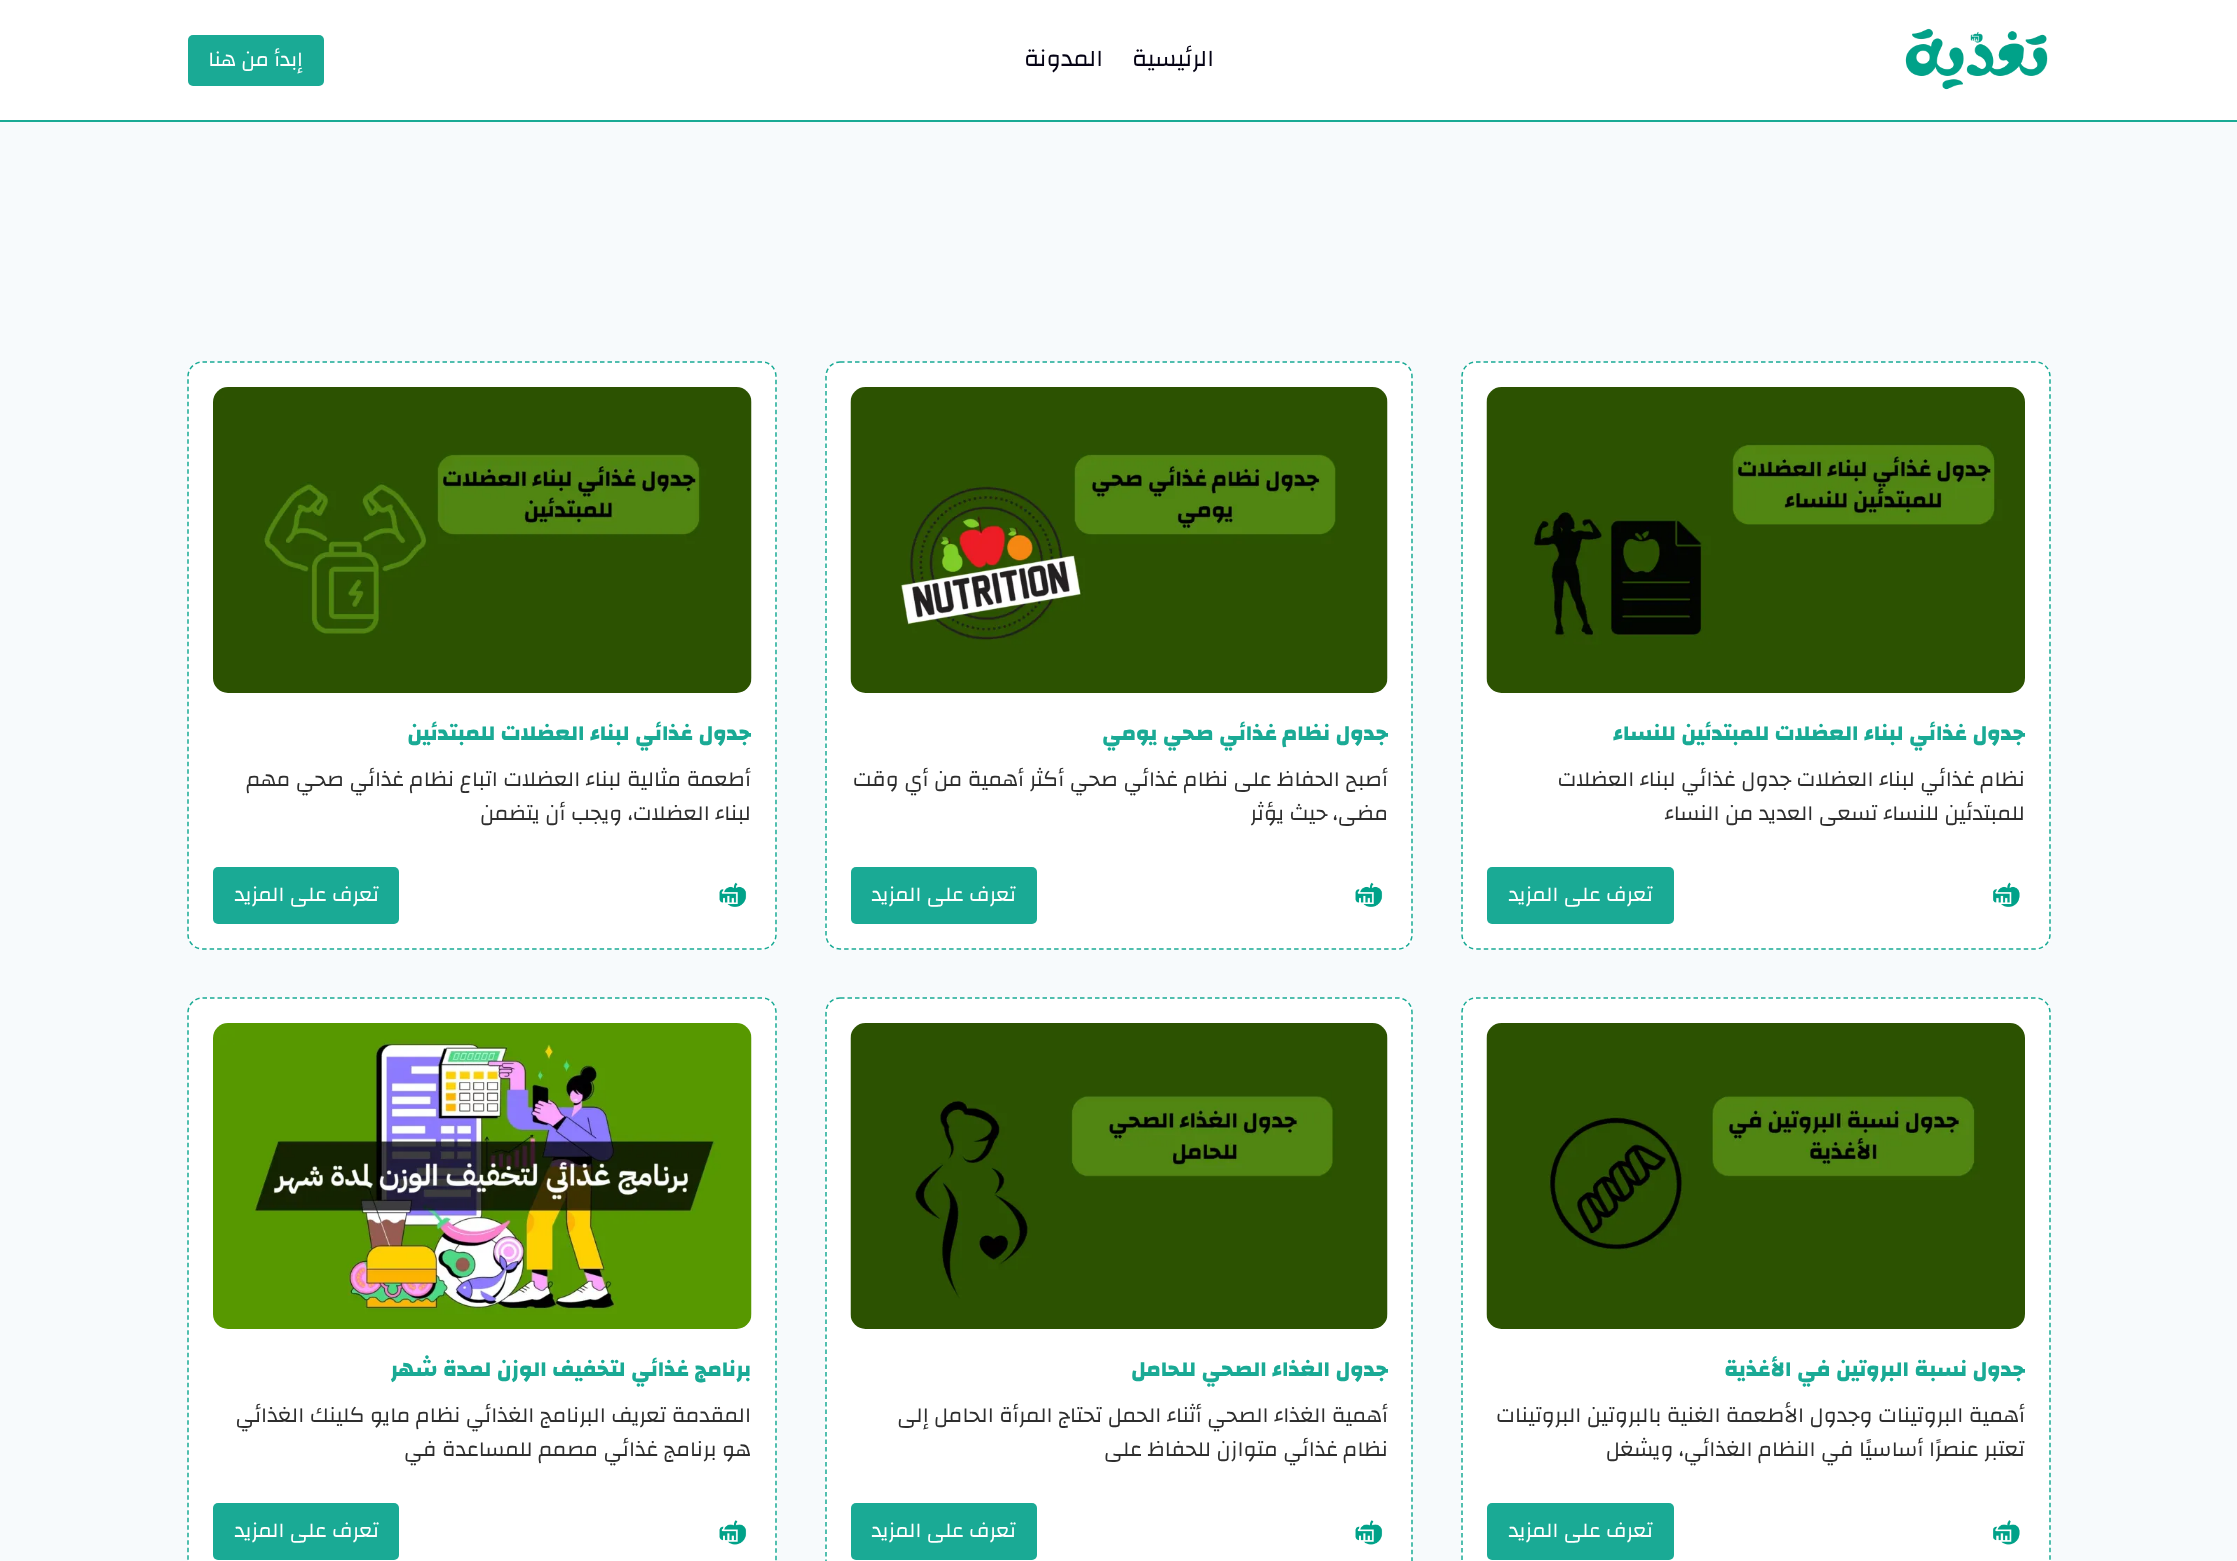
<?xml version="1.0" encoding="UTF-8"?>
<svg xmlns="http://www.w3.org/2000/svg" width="2237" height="1561">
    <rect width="100%" height="100%" fill="#F7FAFC"/>
    <rect x="0" y="0" width="2237" height="120" fill="#FFFFFF"/>
    <rect x="0" y="120" width="2237" height="2" fill="#1AAA95"/>
    <image x="1905" y="28" width="143" height="62" href="img_01.png"/>
    <text x="1214" y="66" font-family="Changa" font-size="24" direction="rtl" fill="#050315">الرئيسية</text>
    <text x="1103" y="66" font-family="Changa" font-size="24" direction="rtl" fill="#050315">المدونة</text>
    <rect x="188" y="35" width="136" height="51" rx="5" fill="#1AAA95"/>
    <text x="303" y="66" font-family="Changa" font-size="21" direction="rtl" fill="#FFFFFF">إبدأ من هنا</text>
    <rect x="1461" y="362" width="590" height="588" rx="15" fill="#FFFFFF"/>
    <path d="M 1476 362 H 2035.5 C 2043.5 362 2050 368.5 2050 376.5 V 934.5 C 2050 942.5 2043.5 949 2035.5 949 H 1476 C 1468 949 1462 942.5 1462 934.5 V 376.5 C 1462 368.5 1468 362 1476 362 Z" fill="none" stroke="#1AAA95" stroke-width="1.5" stroke-dasharray="4.5 3"/>
    <image x="1486" y="387" width="539" height="306" href="img_02.png"/>
    <text x="2025" y="740" font-family="Changa" font-size="21.6" font-weight="800" direction="rtl" fill="#1AAA95">جدول غذائي لبناء العضلات للمبتدئين للنساء</text>
    <text font-family="Changa" font-size="21.6" direction="rtl" fill="#2E2E2E">
        <tspan x="2025" y="786">نظام غذائي لبناء العضلات جدول غذائي لبناء العضلات</tspan>
        <tspan x="2025" y="820">للمبتدئين للنساء تسعى العديد من النساء</tspan>
    </text>
    <image x="1993" y="882" width="27" height="25" href="img_03.png"/>
    <rect x="1487" y="867" width="187" height="57" rx="5" fill="#1AAA95"/>
    <text x="1653" y="901" font-family="Changa" font-size="21" direction="rtl" fill="#FFFFFF">تعرف على المزيد</text>
    <rect x="825" y="362" width="588" height="588" rx="15" fill="#FFFFFF"/>
    <path d="M 840 362 H 1398 C 1406 362 1412 368.5 1412 376.5 V 934.5 C 1412 942.5 1406 949 1398 949 H 840 C 832 949 826 942.5 826 934.5 V 376.5 C 826 368.5 832 362 840 362 Z" fill="none" stroke="#1AAA95" stroke-width="1.5" stroke-dasharray="4.5 3"/>
    <image x="850" y="387" width="538" height="306" href="img_04.png"/>
    <text x="1388" y="740" font-family="Changa" font-size="21.6" font-weight="800" direction="rtl" fill="#1AAA95">جدول نظام غذائي صحي يومي</text>
    <text font-family="Changa" font-size="21.6" direction="rtl" fill="#2E2E2E">
        <tspan x="1388" y="786">أصبح الحفاظ على نظام غذائي صحي أكثر أهمية من أي وقت</tspan>
        <tspan x="1388" y="820">مضى، حيث يؤثر</tspan>
    </text>
    <image x="1355" y="882" width="28" height="25" href="img_05.png"/>
    <rect x="851" y="867" width="186" height="57" rx="5" fill="#1AAA95"/>
    <text x="1016" y="901" font-family="Changa" font-size="21" direction="rtl" fill="#FFFFFF">تعرف على المزيد</text>
    <rect x="188" y="362" width="589" height="588" rx="15" fill="#FFFFFF"/>
    <path d="M 202.5 362 H 762 C 770 362 776 368.5 776 376.5 V 934.5 C 776 942.5 770 949 762 949 H 202.5 C 194.5 949 188 942.5 188 934.5 V 376.5 C 188 368.5 194.5 362 202.5 362 Z" fill="none" stroke="#1AAA95" stroke-width="1.5" stroke-dasharray="4.5 3"/>
    <image x="213" y="387" width="539" height="306" href="img_06.png"/>
    <text x="751" y="740" font-family="Changa" font-size="21.6" font-weight="800" direction="rtl" fill="#1AAA95">جدول غذائي لبناء العضلات للمبتدئين</text>
    <text font-family="Changa" font-size="21.6" direction="rtl" fill="#2E2E2E">
        <tspan x="751" y="786">أطعمة مثالية لبناء العضلات اتباع نظام غذائي صحي مهم</tspan>
        <tspan x="751" y="820">لبناء العضلات، ويجب أن يتضمن</tspan>
    </text>
    <image x="719" y="882" width="28" height="25" href="img_05.png"/>
    <rect x="213" y="867" width="186" height="57" rx="5" fill="#1AAA95"/>
    <text x="379" y="901" font-family="Changa" font-size="21" direction="rtl" fill="#FFFFFF">تعرف على المزيد</text>
    <rect x="1461" y="998" width="590" height="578" rx="15" fill="#FFFFFF"/>
    <path d="M 1476 998 H 2035.5 C 2043.5 998 2050 1004.5 2050 1012.5 V 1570.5 C 2050 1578.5 2043.5 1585 2035.5 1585 H 1476 C 1468 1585 1462 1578.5 1462 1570.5 V 1012.5 C 1462 1004.5 1468 998 1476 998 Z" fill="none" stroke="#1AAA95" stroke-width="1.5" stroke-dasharray="4.5 3"/>
    <image x="1486" y="1023" width="539" height="306" href="img_07.png"/>
    <text x="2025" y="1376" font-family="Changa" font-size="21.6" font-weight="800" direction="rtl" fill="#1AAA95">جدول نسبة البروتين في الأغذية</text>
    <text font-family="Changa" font-size="21.6" direction="rtl" fill="#2E2E2E">
        <tspan x="2025" y="1422">أهمية البروتينات وجدول الأطعمة الغنية بالبروتين البروتينات</tspan>
        <tspan x="2025" y="1456">تعتبر عنصرًا أساسيًا في النظام الغذائي، ويشغل</tspan>
    </text>
    <image x="1993" y="1520" width="27" height="25" href="img_08.png"/>
    <rect x="1487" y="1503" width="187" height="57" rx="5" fill="#1AAA95"/>
    <text x="1653" y="1537" font-family="Changa" font-size="21" direction="rtl" fill="#FFFFFF">تعرف على المزيد</text>
    <rect x="825" y="998" width="588" height="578" rx="15" fill="#FFFFFF"/>
    <path d="M 840 998 H 1398 C 1406 998 1412 1004.5 1412 1012.5 V 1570.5 C 1412 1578.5 1406 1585 1398 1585 H 840 C 832 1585 826 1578.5 826 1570.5 V 1012.5 C 826 1004.5 832 998 840 998 Z" fill="none" stroke="#1AAA95" stroke-width="1.5" stroke-dasharray="4.5 3"/>
    <image x="850" y="1023" width="538" height="306" href="img_09.png"/>
    <text x="1388" y="1376" font-family="Changa" font-size="21.6" font-weight="800" direction="rtl" fill="#1AAA95">جدول الغذاء الصحي للحامل</text>
    <text font-family="Changa" font-size="21.6" direction="rtl" fill="#2E2E2E">
        <tspan x="1388" y="1422">أهمية الغذاء الصحي أثناء الحمل تحتاج المرأة الحامل إلى</tspan>
        <tspan x="1388" y="1456">نظام غذائي متوازن للحفاظ على</tspan>
    </text>
    <image x="1355" y="1520" width="28" height="25" href="img_10.png"/>
    <rect x="851" y="1503" width="186" height="57" rx="5" fill="#1AAA95"/>
    <text x="1016" y="1537" font-family="Changa" font-size="21" direction="rtl" fill="#FFFFFF">تعرف على المزيد</text>
    <rect x="188" y="998" width="589" height="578" rx="15" fill="#FFFFFF"/>
    <path d="M 202.5 998 H 762 C 770 998 776 1004.5 776 1012.5 V 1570.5 C 776 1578.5 770 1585 762 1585 H 202.5 C 194.5 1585 188 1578.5 188 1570.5 V 1012.5 C 188 1004.5 194.5 998 202.5 998 Z" fill="none" stroke="#1AAA95" stroke-width="1.5" stroke-dasharray="4.5 3"/>
    <image x="213" y="1023" width="539" height="306" href="img_11.png"/>
    <text x="751" y="1376" font-family="Changa" font-size="21.6" font-weight="800" direction="rtl" fill="#1AAA95">برنامج غذائي لتخفيف الوزن لمدة شهر</text>
    <text font-family="Changa" font-size="21.6" direction="rtl" fill="#2E2E2E">
        <tspan x="751" y="1422">المقدمة تعريف البرنامج الغذائي نظام مايو كلينك الغذائي</tspan>
        <tspan x="751" y="1456">هو برنامج غذائي مصمم للمساعدة في</tspan>
    </text>
    <image x="719" y="1520" width="28" height="25" href="img_10.png"/>
    <rect x="213" y="1503" width="186" height="57" rx="5" fill="#1AAA95"/>
    <text x="379" y="1537" font-family="Changa" font-size="21" direction="rtl" fill="#FFFFFF">تعرف على المزيد</text>
</svg>
